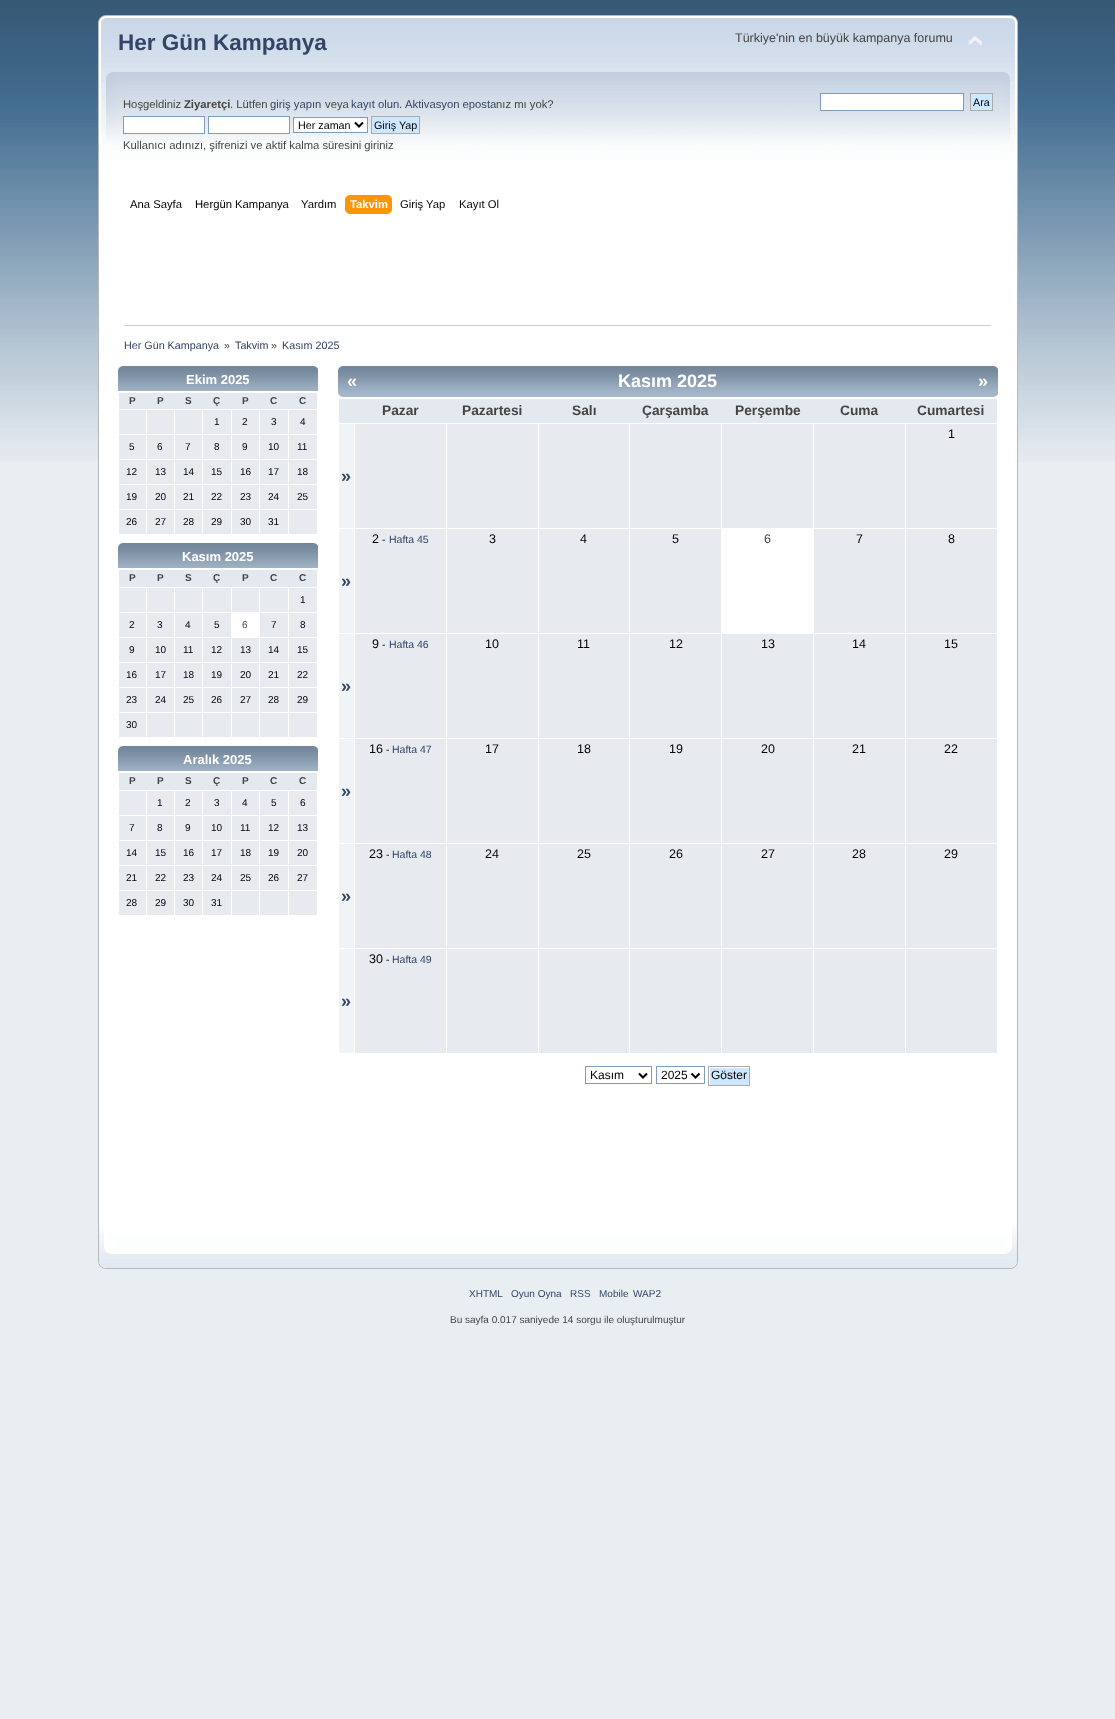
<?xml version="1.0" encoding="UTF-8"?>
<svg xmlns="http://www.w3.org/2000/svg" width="1115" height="1719">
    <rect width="100%" height="100%" fill="#E9EEF2"/>
    <image x="0" y="0" width="1115" height="462" href="img_01.png"/>
    <image x="98" y="15" width="906" height="214" href="img_02.png"/>
    <image x="1004" y="15" width="14" height="214" href="img_03.png"/>
    <text x="118" y="50" font-family="Liberation Sans" font-size="22.5" font-weight="700" fill="#334466">Her Gün Kampanya</text>
    <text x="735" y="42" font-family="Liberation Sans" font-size="12.5" fill="#444444">Türkiye'nin en büyük kampanya forumu</text>
    <image x="968" y="35" width="15" height="12" href="img_04.png"/>
    <text x="123" y="108" font-family="Liberation Sans" font-size="11.25" fill="#444444">Hoşgeldiniz</text>
    <text x="184" y="108" font-family="Liberation Sans" font-size="11.25" font-weight="700" fill="#444444">Ziyaretçi</text>
    <text x="230" y="108" font-family="Liberation Sans" font-size="11.25" fill="#444444">. Lütfen</text>
    <text x="270" y="108" font-family="Liberation Sans" font-size="11.25" fill="#334466">giriş yapın</text>
    <text x="325" y="108" font-family="Liberation Sans" font-size="11.25" fill="#444444">veya</text>
    <text x="351" y="108" font-family="Liberation Sans" font-size="11.25" fill="#334466">kayıt olun</text>
    <text x="399" y="108" font-family="Liberation Sans" font-size="11.25" fill="#444444">.</text>
    <text x="405" y="108" font-family="Liberation Sans" font-size="11.25" fill="#334466">Aktivasyon eposta</text>
    <text x="496" y="108" font-family="Liberation Sans" font-size="11.25" fill="#444444">nız mı yok?</text>
    <rect x="123.5" y="116.5" width="81" height="17" fill="#FFFFFF" stroke="#7F9DB9"/>
    <rect x="208.5" y="116.5" width="81" height="17" fill="#FFFFFF" stroke="#7F9DB9"/>
    <rect x="293.5" y="117.5" width="74" height="15" fill="#FFFFFF" stroke="#7F9DB9"/>
    <path d="M 355 122.5 L 359 126.5 L 363 122.5" fill="none" stroke="#000000" stroke-width="2"/>
    <text x="298" y="129" font-family="Liberation Sans" font-size="10.75" fill="#000000">Her zaman</text>
    <rect x="371.5" y="116.5" width="48" height="17" fill="#CDE7FF" stroke="#AAAAAA"/>
    <text x="374" y="129" font-family="Liberation Sans" font-size="10.75" fill="#000000">Giriş Yap</text>
    <text x="123" y="149" font-family="Liberation Sans" font-size="11.25" fill="#444444">Kullanıcı adınızı, şifrenizi ve aktif kalma süresini giriniz</text>
    <rect x="820.5" y="93.5" width="143" height="17" fill="#FFFFFF" stroke="#7F9DB9"/>
    <rect x="970.5" y="93.5" width="22" height="17" fill="#CDE7FF" stroke="#AAAAAA"/>
    <text x="973" y="106" font-family="Liberation Sans" font-size="10.75" fill="#000000">Ara</text>
    <text x="130" y="208" font-family="Liberation Sans" font-size="11.25" fill="#000000">Ana Sayfa</text>
    <text x="195" y="208" font-family="Liberation Sans" font-size="11.25" fill="#000000">Hergün Kampanya</text>
    <text x="301" y="208" font-family="Liberation Sans" font-size="11.25" fill="#000000">Yardım</text>
    <image x="350" y="195" width="42" height="19" href="img_05.png"/>
    <image x="345" y="195" width="5" height="19" href="img_06.png"/>
    <text x="350" y="208" font-family="Liberation Sans" font-size="11.25" font-weight="700" fill="#FFFFFF">Takvim</text>
    <text x="400" y="208" font-family="Liberation Sans" font-size="11.25" fill="#000000">Giriş Yap</text>
    <text x="459" y="208" font-family="Liberation Sans" font-size="11.25" fill="#000000">Kayıt Ol</text>
    <rect x="99" y="229" width="918" height="996" fill="#FFFFFF"/>
    <rect x="98" y="229" width="1" height="996" fill="#B7B7B7"/>
    <rect x="1017" y="229" width="1" height="996" fill="#B7B7B7"/>
    <rect x="124" y="325" width="867" height="1" fill="#CCCCCC"/>
    <text x="124" y="349" font-family="Liberation Sans" font-size="10.75" fill="#334466">Her Gün Kampanya</text>
    <text x="224" y="349" font-family="Liberation Sans" font-size="10.75" fill="#444444">»</text>
    <text x="235" y="349" font-family="Liberation Sans" font-size="10.75" fill="#334466">Takvim</text>
    <text x="271" y="349" font-family="Liberation Sans" font-size="10.75" fill="#444444">»</text>
    <text x="282" y="349" font-family="Liberation Sans" font-size="10.75" fill="#334466">Kasım 2025</text>
    <image x="118" y="366" width="200" height="25" href="img_07.png"/>
    <image x="313" y="366" width="5" height="3" href="img_08.png"/>
    <text x="186" y="384" font-family="Liberation Sans" font-size="13" font-weight="700" fill="#FFFFFF">Ekim 2025</text>
    <rect x="119" y="393" width="198" height="16" fill="#E3E9EF"/>
    <text x="129" y="404" font-family="Liberation Sans" font-size="10" font-weight="700" fill="#444444">P</text>
    <text x="157" y="404" font-family="Liberation Sans" font-size="10" font-weight="700" fill="#444444">P</text>
    <text x="185" y="404" font-family="Liberation Sans" font-size="10" font-weight="700" fill="#444444">S</text>
    <text x="213" y="404" font-family="Liberation Sans" font-size="10" font-weight="700" fill="#444444">Ç</text>
    <text x="242" y="404" font-family="Liberation Sans" font-size="10" font-weight="700" fill="#444444">P</text>
    <text x="270" y="404" font-family="Liberation Sans" font-size="10" font-weight="700" fill="#444444">C</text>
    <text x="299" y="404" font-family="Liberation Sans" font-size="10" font-weight="700" fill="#444444">C</text>
    <rect x="119" y="410" width="27" height="24" fill="#E7EAEF"/>
    <rect x="147" y="410" width="27" height="24" fill="#E7EAEF"/>
    <rect x="175" y="410" width="27" height="24" fill="#E7EAEF"/>
    <rect x="203" y="410" width="28" height="24" fill="#E7EAEF"/>
    <text x="214" y="425" font-family="Liberation Sans" font-size="10" fill="#000000">1</text>
    <rect x="232" y="410" width="27" height="24" fill="#E7EAEF"/>
    <text x="242" y="425" font-family="Liberation Sans" font-size="10" fill="#000000">2</text>
    <rect x="260" y="410" width="28" height="24" fill="#E7EAEF"/>
    <text x="271" y="425" font-family="Liberation Sans" font-size="10" fill="#000000">3</text>
    <rect x="289" y="410" width="28" height="24" fill="#E7EAEF"/>
    <text x="300" y="425" font-family="Liberation Sans" font-size="10" fill="#000000">4</text>
    <rect x="119" y="435" width="27" height="24" fill="#E7EAEF"/>
    <text x="129" y="450" font-family="Liberation Sans" font-size="10" fill="#000000">5</text>
    <rect x="147" y="435" width="27" height="24" fill="#E7EAEF"/>
    <text x="157" y="450" font-family="Liberation Sans" font-size="10" fill="#000000">6</text>
    <rect x="175" y="435" width="27" height="24" fill="#E7EAEF"/>
    <text x="185" y="450" font-family="Liberation Sans" font-size="10" fill="#000000">7</text>
    <rect x="203" y="435" width="28" height="24" fill="#E7EAEF"/>
    <text x="214" y="450" font-family="Liberation Sans" font-size="10" fill="#000000">8</text>
    <rect x="232" y="435" width="27" height="24" fill="#E7EAEF"/>
    <text x="242" y="450" font-family="Liberation Sans" font-size="10" fill="#000000">9</text>
    <rect x="260" y="435" width="28" height="24" fill="#E7EAEF"/>
    <text x="268" y="450" font-family="Liberation Sans" font-size="10" fill="#000000">10</text>
    <rect x="289" y="435" width="28" height="24" fill="#E7EAEF"/>
    <text x="297" y="450" font-family="Liberation Sans" font-size="10" fill="#000000">11</text>
    <rect x="119" y="460" width="27" height="24" fill="#E7EAEF"/>
    <text x="126" y="475" font-family="Liberation Sans" font-size="10" fill="#000000">12</text>
    <rect x="147" y="460" width="27" height="24" fill="#E7EAEF"/>
    <text x="155" y="475" font-family="Liberation Sans" font-size="10" fill="#000000">13</text>
    <rect x="175" y="460" width="27" height="24" fill="#E7EAEF"/>
    <text x="183" y="475" font-family="Liberation Sans" font-size="10" fill="#000000">14</text>
    <rect x="203" y="460" width="28" height="24" fill="#E7EAEF"/>
    <text x="211" y="475" font-family="Liberation Sans" font-size="10" fill="#000000">15</text>
    <rect x="232" y="460" width="27" height="24" fill="#E7EAEF"/>
    <text x="240" y="475" font-family="Liberation Sans" font-size="10" fill="#000000">16</text>
    <rect x="260" y="460" width="28" height="24" fill="#E7EAEF"/>
    <text x="268" y="475" font-family="Liberation Sans" font-size="10" fill="#000000">17</text>
    <rect x="289" y="460" width="28" height="24" fill="#E7EAEF"/>
    <text x="297" y="475" font-family="Liberation Sans" font-size="10" fill="#000000">18</text>
    <rect x="119" y="485" width="27" height="24" fill="#E7EAEF"/>
    <text x="126" y="500" font-family="Liberation Sans" font-size="10" fill="#000000">19</text>
    <rect x="147" y="485" width="27" height="24" fill="#E7EAEF"/>
    <text x="155" y="500" font-family="Liberation Sans" font-size="10" fill="#000000">20</text>
    <rect x="175" y="485" width="27" height="24" fill="#E7EAEF"/>
    <text x="183" y="500" font-family="Liberation Sans" font-size="10" fill="#000000">21</text>
    <rect x="203" y="485" width="28" height="24" fill="#E7EAEF"/>
    <text x="211" y="500" font-family="Liberation Sans" font-size="10" fill="#000000">22</text>
    <rect x="232" y="485" width="27" height="24" fill="#E7EAEF"/>
    <text x="240" y="500" font-family="Liberation Sans" font-size="10" fill="#000000">23</text>
    <rect x="260" y="485" width="28" height="24" fill="#E7EAEF"/>
    <text x="268" y="500" font-family="Liberation Sans" font-size="10" fill="#000000">24</text>
    <rect x="289" y="485" width="28" height="24" fill="#E7EAEF"/>
    <text x="297" y="500" font-family="Liberation Sans" font-size="10" fill="#000000">25</text>
    <rect x="119" y="510" width="27" height="24" fill="#E7EAEF"/>
    <text x="126" y="525" font-family="Liberation Sans" font-size="10" fill="#000000">26</text>
    <rect x="147" y="510" width="27" height="24" fill="#E7EAEF"/>
    <text x="155" y="525" font-family="Liberation Sans" font-size="10" fill="#000000">27</text>
    <rect x="175" y="510" width="27" height="24" fill="#E7EAEF"/>
    <text x="183" y="525" font-family="Liberation Sans" font-size="10" fill="#000000">28</text>
    <rect x="203" y="510" width="28" height="24" fill="#E7EAEF"/>
    <text x="211" y="525" font-family="Liberation Sans" font-size="10" fill="#000000">29</text>
    <rect x="232" y="510" width="27" height="24" fill="#E7EAEF"/>
    <text x="240" y="525" font-family="Liberation Sans" font-size="10" fill="#000000">30</text>
    <rect x="260" y="510" width="28" height="24" fill="#E7EAEF"/>
    <text x="268" y="525" font-family="Liberation Sans" font-size="10" fill="#000000">31</text>
    <rect x="289" y="510" width="28" height="24" fill="#E7EAEF"/>
    <image x="118" y="543" width="200" height="25" href="img_07.png"/>
    <image x="313" y="543" width="5" height="3" href="img_08.png"/>
    <text x="182" y="561" font-family="Liberation Sans" font-size="13" font-weight="700" fill="#FFFFFF">Kasım 2025</text>
    <rect x="119" y="570" width="198" height="17" fill="#E3E9EF"/>
    <text x="129" y="581" font-family="Liberation Sans" font-size="10" font-weight="700" fill="#444444">P</text>
    <text x="157" y="581" font-family="Liberation Sans" font-size="10" font-weight="700" fill="#444444">P</text>
    <text x="185" y="581" font-family="Liberation Sans" font-size="10" font-weight="700" fill="#444444">S</text>
    <text x="213" y="581" font-family="Liberation Sans" font-size="10" font-weight="700" fill="#444444">Ç</text>
    <text x="242" y="581" font-family="Liberation Sans" font-size="10" font-weight="700" fill="#444444">P</text>
    <text x="270" y="581" font-family="Liberation Sans" font-size="10" font-weight="700" fill="#444444">C</text>
    <text x="299" y="581" font-family="Liberation Sans" font-size="10" font-weight="700" fill="#444444">C</text>
    <rect x="119" y="588" width="27" height="24" fill="#E7EAEF"/>
    <rect x="147" y="588" width="27" height="24" fill="#E7EAEF"/>
    <rect x="175" y="588" width="27" height="24" fill="#E7EAEF"/>
    <rect x="203" y="588" width="28" height="24" fill="#E7EAEF"/>
    <rect x="232" y="588" width="27" height="24" fill="#E7EAEF"/>
    <rect x="260" y="588" width="28" height="24" fill="#E7EAEF"/>
    <rect x="289" y="588" width="28" height="24" fill="#E7EAEF"/>
    <text x="300" y="603" font-family="Liberation Sans" font-size="10" fill="#000000">1</text>
    <rect x="119" y="613" width="27" height="24" fill="#E7EAEF"/>
    <text x="129" y="628" font-family="Liberation Sans" font-size="10" fill="#000000">2</text>
    <rect x="147" y="613" width="27" height="24" fill="#E7EAEF"/>
    <text x="157" y="628" font-family="Liberation Sans" font-size="10" fill="#000000">3</text>
    <rect x="175" y="613" width="27" height="24" fill="#E7EAEF"/>
    <text x="185" y="628" font-family="Liberation Sans" font-size="10" fill="#000000">4</text>
    <rect x="203" y="613" width="28" height="24" fill="#E7EAEF"/>
    <text x="214" y="628" font-family="Liberation Sans" font-size="10" fill="#000000">5</text>
    <text x="242" y="628" font-family="Liberation Sans" font-size="10" fill="#444444">6</text>
    <rect x="260" y="613" width="28" height="24" fill="#E7EAEF"/>
    <text x="271" y="628" font-family="Liberation Sans" font-size="10" fill="#000000">7</text>
    <rect x="289" y="613" width="28" height="24" fill="#E7EAEF"/>
    <text x="300" y="628" font-family="Liberation Sans" font-size="10" fill="#000000">8</text>
    <rect x="119" y="638" width="27" height="24" fill="#E7EAEF"/>
    <text x="129" y="653" font-family="Liberation Sans" font-size="10" fill="#000000">9</text>
    <rect x="147" y="638" width="27" height="24" fill="#E7EAEF"/>
    <text x="155" y="653" font-family="Liberation Sans" font-size="10" fill="#000000">10</text>
    <rect x="175" y="638" width="27" height="24" fill="#E7EAEF"/>
    <text x="183" y="653" font-family="Liberation Sans" font-size="10" fill="#000000">11</text>
    <rect x="203" y="638" width="28" height="24" fill="#E7EAEF"/>
    <text x="211" y="653" font-family="Liberation Sans" font-size="10" fill="#000000">12</text>
    <rect x="232" y="638" width="27" height="24" fill="#E7EAEF"/>
    <text x="240" y="653" font-family="Liberation Sans" font-size="10" fill="#000000">13</text>
    <rect x="260" y="638" width="28" height="24" fill="#E7EAEF"/>
    <text x="268" y="653" font-family="Liberation Sans" font-size="10" fill="#000000">14</text>
    <rect x="289" y="638" width="28" height="24" fill="#E7EAEF"/>
    <text x="297" y="653" font-family="Liberation Sans" font-size="10" fill="#000000">15</text>
    <rect x="119" y="663" width="27" height="24" fill="#E7EAEF"/>
    <text x="126" y="678" font-family="Liberation Sans" font-size="10" fill="#000000">16</text>
    <rect x="147" y="663" width="27" height="24" fill="#E7EAEF"/>
    <text x="155" y="678" font-family="Liberation Sans" font-size="10" fill="#000000">17</text>
    <rect x="175" y="663" width="27" height="24" fill="#E7EAEF"/>
    <text x="183" y="678" font-family="Liberation Sans" font-size="10" fill="#000000">18</text>
    <rect x="203" y="663" width="28" height="24" fill="#E7EAEF"/>
    <text x="211" y="678" font-family="Liberation Sans" font-size="10" fill="#000000">19</text>
    <rect x="232" y="663" width="27" height="24" fill="#E7EAEF"/>
    <text x="240" y="678" font-family="Liberation Sans" font-size="10" fill="#000000">20</text>
    <rect x="260" y="663" width="28" height="24" fill="#E7EAEF"/>
    <text x="268" y="678" font-family="Liberation Sans" font-size="10" fill="#000000">21</text>
    <rect x="289" y="663" width="28" height="24" fill="#E7EAEF"/>
    <text x="297" y="678" font-family="Liberation Sans" font-size="10" fill="#000000">22</text>
    <rect x="119" y="688" width="27" height="24" fill="#E7EAEF"/>
    <text x="126" y="703" font-family="Liberation Sans" font-size="10" fill="#000000">23</text>
    <rect x="147" y="688" width="27" height="24" fill="#E7EAEF"/>
    <text x="155" y="703" font-family="Liberation Sans" font-size="10" fill="#000000">24</text>
    <rect x="175" y="688" width="27" height="24" fill="#E7EAEF"/>
    <text x="183" y="703" font-family="Liberation Sans" font-size="10" fill="#000000">25</text>
    <rect x="203" y="688" width="28" height="24" fill="#E7EAEF"/>
    <text x="211" y="703" font-family="Liberation Sans" font-size="10" fill="#000000">26</text>
    <rect x="232" y="688" width="27" height="24" fill="#E7EAEF"/>
    <text x="240" y="703" font-family="Liberation Sans" font-size="10" fill="#000000">27</text>
    <rect x="260" y="688" width="28" height="24" fill="#E7EAEF"/>
    <text x="268" y="703" font-family="Liberation Sans" font-size="10" fill="#000000">28</text>
    <rect x="289" y="688" width="28" height="24" fill="#E7EAEF"/>
    <text x="297" y="703" font-family="Liberation Sans" font-size="10" fill="#000000">29</text>
    <rect x="119" y="713" width="27" height="24" fill="#E7EAEF"/>
    <text x="126" y="728" font-family="Liberation Sans" font-size="10" fill="#000000">30</text>
    <rect x="147" y="713" width="27" height="24" fill="#E7EAEF"/>
    <rect x="175" y="713" width="27" height="24" fill="#E7EAEF"/>
    <rect x="203" y="713" width="28" height="24" fill="#E7EAEF"/>
    <rect x="232" y="713" width="27" height="24" fill="#E7EAEF"/>
    <rect x="260" y="713" width="28" height="24" fill="#E7EAEF"/>
    <rect x="289" y="713" width="28" height="24" fill="#E7EAEF"/>
    <image x="118" y="746" width="200" height="25" href="img_07.png"/>
    <image x="313" y="746" width="5" height="3" href="img_08.png"/>
    <text x="183" y="764" font-family="Liberation Sans" font-size="13" font-weight="700" fill="#FFFFFF">Aralık 2025</text>
    <rect x="119" y="773" width="198" height="17" fill="#E3E9EF"/>
    <text x="129" y="784" font-family="Liberation Sans" font-size="10" font-weight="700" fill="#444444">P</text>
    <text x="157" y="784" font-family="Liberation Sans" font-size="10" font-weight="700" fill="#444444">P</text>
    <text x="185" y="784" font-family="Liberation Sans" font-size="10" font-weight="700" fill="#444444">S</text>
    <text x="213" y="784" font-family="Liberation Sans" font-size="10" font-weight="700" fill="#444444">Ç</text>
    <text x="242" y="784" font-family="Liberation Sans" font-size="10" font-weight="700" fill="#444444">P</text>
    <text x="270" y="784" font-family="Liberation Sans" font-size="10" font-weight="700" fill="#444444">C</text>
    <text x="299" y="784" font-family="Liberation Sans" font-size="10" font-weight="700" fill="#444444">C</text>
    <rect x="119" y="791" width="27" height="24" fill="#E7EAEF"/>
    <rect x="147" y="791" width="27" height="24" fill="#E7EAEF"/>
    <text x="157" y="806" font-family="Liberation Sans" font-size="10" fill="#000000">1</text>
    <rect x="175" y="791" width="27" height="24" fill="#E7EAEF"/>
    <text x="185" y="806" font-family="Liberation Sans" font-size="10" fill="#000000">2</text>
    <rect x="203" y="791" width="28" height="24" fill="#E7EAEF"/>
    <text x="214" y="806" font-family="Liberation Sans" font-size="10" fill="#000000">3</text>
    <rect x="232" y="791" width="27" height="24" fill="#E7EAEF"/>
    <text x="242" y="806" font-family="Liberation Sans" font-size="10" fill="#000000">4</text>
    <rect x="260" y="791" width="28" height="24" fill="#E7EAEF"/>
    <text x="271" y="806" font-family="Liberation Sans" font-size="10" fill="#000000">5</text>
    <rect x="289" y="791" width="28" height="24" fill="#E7EAEF"/>
    <text x="300" y="806" font-family="Liberation Sans" font-size="10" fill="#000000">6</text>
    <rect x="119" y="816" width="27" height="24" fill="#E7EAEF"/>
    <text x="129" y="831" font-family="Liberation Sans" font-size="10" fill="#000000">7</text>
    <rect x="147" y="816" width="27" height="24" fill="#E7EAEF"/>
    <text x="157" y="831" font-family="Liberation Sans" font-size="10" fill="#000000">8</text>
    <rect x="175" y="816" width="27" height="24" fill="#E7EAEF"/>
    <text x="185" y="831" font-family="Liberation Sans" font-size="10" fill="#000000">9</text>
    <rect x="203" y="816" width="28" height="24" fill="#E7EAEF"/>
    <text x="211" y="831" font-family="Liberation Sans" font-size="10" fill="#000000">10</text>
    <rect x="232" y="816" width="27" height="24" fill="#E7EAEF"/>
    <text x="240" y="831" font-family="Liberation Sans" font-size="10" fill="#000000">11</text>
    <rect x="260" y="816" width="28" height="24" fill="#E7EAEF"/>
    <text x="268" y="831" font-family="Liberation Sans" font-size="10" fill="#000000">12</text>
    <rect x="289" y="816" width="28" height="24" fill="#E7EAEF"/>
    <text x="297" y="831" font-family="Liberation Sans" font-size="10" fill="#000000">13</text>
    <rect x="119" y="841" width="27" height="24" fill="#E7EAEF"/>
    <text x="126" y="856" font-family="Liberation Sans" font-size="10" fill="#000000">14</text>
    <rect x="147" y="841" width="27" height="24" fill="#E7EAEF"/>
    <text x="155" y="856" font-family="Liberation Sans" font-size="10" fill="#000000">15</text>
    <rect x="175" y="841" width="27" height="24" fill="#E7EAEF"/>
    <text x="183" y="856" font-family="Liberation Sans" font-size="10" fill="#000000">16</text>
    <rect x="203" y="841" width="28" height="24" fill="#E7EAEF"/>
    <text x="211" y="856" font-family="Liberation Sans" font-size="10" fill="#000000">17</text>
    <rect x="232" y="841" width="27" height="24" fill="#E7EAEF"/>
    <text x="240" y="856" font-family="Liberation Sans" font-size="10" fill="#000000">18</text>
    <rect x="260" y="841" width="28" height="24" fill="#E7EAEF"/>
    <text x="268" y="856" font-family="Liberation Sans" font-size="10" fill="#000000">19</text>
    <rect x="289" y="841" width="28" height="24" fill="#E7EAEF"/>
    <text x="297" y="856" font-family="Liberation Sans" font-size="10" fill="#000000">20</text>
    <rect x="119" y="866" width="27" height="24" fill="#E7EAEF"/>
    <text x="126" y="881" font-family="Liberation Sans" font-size="10" fill="#000000">21</text>
    <rect x="147" y="866" width="27" height="24" fill="#E7EAEF"/>
    <text x="155" y="881" font-family="Liberation Sans" font-size="10" fill="#000000">22</text>
    <rect x="175" y="866" width="27" height="24" fill="#E7EAEF"/>
    <text x="183" y="881" font-family="Liberation Sans" font-size="10" fill="#000000">23</text>
    <rect x="203" y="866" width="28" height="24" fill="#E7EAEF"/>
    <text x="211" y="881" font-family="Liberation Sans" font-size="10" fill="#000000">24</text>
    <rect x="232" y="866" width="27" height="24" fill="#E7EAEF"/>
    <text x="240" y="881" font-family="Liberation Sans" font-size="10" fill="#000000">25</text>
    <rect x="260" y="866" width="28" height="24" fill="#E7EAEF"/>
    <text x="268" y="881" font-family="Liberation Sans" font-size="10" fill="#000000">26</text>
    <rect x="289" y="866" width="28" height="24" fill="#E7EAEF"/>
    <text x="297" y="881" font-family="Liberation Sans" font-size="10" fill="#000000">27</text>
    <rect x="119" y="891" width="27" height="24" fill="#E7EAEF"/>
    <text x="126" y="906" font-family="Liberation Sans" font-size="10" fill="#000000">28</text>
    <rect x="147" y="891" width="27" height="24" fill="#E7EAEF"/>
    <text x="155" y="906" font-family="Liberation Sans" font-size="10" fill="#000000">29</text>
    <rect x="175" y="891" width="27" height="24" fill="#E7EAEF"/>
    <text x="183" y="906" font-family="Liberation Sans" font-size="10" fill="#000000">30</text>
    <rect x="203" y="891" width="28" height="24" fill="#E7EAEF"/>
    <text x="211" y="906" font-family="Liberation Sans" font-size="10" fill="#000000">31</text>
    <rect x="232" y="891" width="27" height="24" fill="#E7EAEF"/>
    <rect x="260" y="891" width="28" height="24" fill="#E7EAEF"/>
    <rect x="289" y="891" width="28" height="24" fill="#E7EAEF"/>
    <image x="338" y="366" width="655" height="31" href="img_09.png"/>
    <image x="993" y="366" width="5" height="31" href="img_10.png"/>
    <text x="347" y="387" font-family="Liberation Sans" font-size="18" font-weight="700" fill="#FFFFFF">«</text>
    <text x="618" y="387" font-family="Liberation Sans" font-size="18" font-weight="700" fill="#FFFFFF">Kasım 2025</text>
    <text x="978" y="387" font-family="Liberation Sans" font-size="18" font-weight="700" fill="#FFFFFF">»</text>
    <rect x="339" y="399" width="658" height="24" fill="#E3E9EF"/>
    <text x="382" y="415" font-family="Liberation Sans" font-size="13.75" font-weight="700" fill="#444444">Pazar</text>
    <text x="462" y="415" font-family="Liberation Sans" font-size="13.75" font-weight="700" fill="#444444">Pazartesi</text>
    <text x="572" y="415" font-family="Liberation Sans" font-size="13.75" font-weight="700" fill="#444444">Salı</text>
    <text x="642" y="415" font-family="Liberation Sans" font-size="13.75" font-weight="700" fill="#444444">Çarşamba</text>
    <text x="735" y="415" font-family="Liberation Sans" font-size="13.75" font-weight="700" fill="#444444">Perşembe</text>
    <text x="840" y="415" font-family="Liberation Sans" font-size="13.75" font-weight="700" fill="#444444">Cuma</text>
    <text x="917" y="415" font-family="Liberation Sans" font-size="13.75" font-weight="700" fill="#444444">Cumartesi</text>
    <rect x="355" y="424" width="91" height="104" fill="#E7EAEF"/>
    <rect x="447" y="424" width="91" height="104" fill="#E7EAEF"/>
    <rect x="539" y="424" width="90" height="104" fill="#E7EAEF"/>
    <rect x="630" y="424" width="91" height="104" fill="#E7EAEF"/>
    <rect x="722" y="424" width="91" height="104" fill="#E7EAEF"/>
    <rect x="814" y="424" width="91" height="104" fill="#E7EAEF"/>
    <rect x="906" y="424" width="91" height="104" fill="#E7EAEF"/>
    <text x="948" y="438" font-family="Liberation Sans" font-size="12.5" fill="#000000">1</text>
    <rect x="339" y="424" width="15" height="104" fill="#F0F4F7"/>
    <text x="341" y="482" font-family="Liberation Sans" font-size="18" font-weight="700" fill="#334466">»</text>
    <rect x="355" y="529" width="91" height="104" fill="#E7EAEF"/>
    <text x="372" y="543" font-family="Liberation Sans" font-size="12.5" fill="#000000">2</text>
    <text x="382" y="543" font-family="Liberation Sans" font-size="10.5" fill="#000000">-</text>
    <text x="389" y="543" font-family="Liberation Sans" font-size="10.5" fill="#334466">Hafta 45</text>
    <rect x="447" y="529" width="91" height="104" fill="#E7EAEF"/>
    <text x="489" y="543" font-family="Liberation Sans" font-size="12.5" fill="#000000">3</text>
    <rect x="539" y="529" width="90" height="104" fill="#E7EAEF"/>
    <text x="580" y="543" font-family="Liberation Sans" font-size="12.5" fill="#000000">4</text>
    <rect x="630" y="529" width="91" height="104" fill="#E7EAEF"/>
    <text x="672" y="543" font-family="Liberation Sans" font-size="12.5" fill="#000000">5</text>
    <text x="764" y="543" font-family="Liberation Sans" font-size="12.5" fill="#444444">6</text>
    <rect x="814" y="529" width="91" height="104" fill="#E7EAEF"/>
    <text x="856" y="543" font-family="Liberation Sans" font-size="12.5" fill="#000000">7</text>
    <rect x="906" y="529" width="91" height="104" fill="#E7EAEF"/>
    <text x="948" y="543" font-family="Liberation Sans" font-size="12.5" fill="#000000">8</text>
    <rect x="339" y="529" width="15" height="104" fill="#F0F4F7"/>
    <text x="341" y="587" font-family="Liberation Sans" font-size="18" font-weight="700" fill="#334466">»</text>
    <rect x="355" y="634" width="91" height="104" fill="#E7EAEF"/>
    <text x="372" y="648" font-family="Liberation Sans" font-size="12.5" fill="#000000">9</text>
    <text x="382" y="648" font-family="Liberation Sans" font-size="10.5" fill="#000000">-</text>
    <text x="389" y="648" font-family="Liberation Sans" font-size="10.5" fill="#334466">Hafta 46</text>
    <rect x="447" y="634" width="91" height="104" fill="#E7EAEF"/>
    <text x="485" y="648" font-family="Liberation Sans" font-size="12.5" fill="#000000">10</text>
    <rect x="539" y="634" width="90" height="104" fill="#E7EAEF"/>
    <text x="577" y="648" font-family="Liberation Sans" font-size="12.5" fill="#000000">11</text>
    <rect x="630" y="634" width="91" height="104" fill="#E7EAEF"/>
    <text x="669" y="648" font-family="Liberation Sans" font-size="12.5" fill="#000000">12</text>
    <rect x="722" y="634" width="91" height="104" fill="#E7EAEF"/>
    <text x="761" y="648" font-family="Liberation Sans" font-size="12.5" fill="#000000">13</text>
    <rect x="814" y="634" width="91" height="104" fill="#E7EAEF"/>
    <text x="852" y="648" font-family="Liberation Sans" font-size="12.5" fill="#000000">14</text>
    <rect x="906" y="634" width="91" height="104" fill="#E7EAEF"/>
    <text x="944" y="648" font-family="Liberation Sans" font-size="12.5" fill="#000000">15</text>
    <rect x="339" y="634" width="15" height="104" fill="#F0F4F7"/>
    <text x="341" y="692" font-family="Liberation Sans" font-size="18" font-weight="700" fill="#334466">»</text>
    <rect x="355" y="739" width="91" height="104" fill="#E7EAEF"/>
    <text x="369" y="753" font-family="Liberation Sans" font-size="12.5" fill="#000000">16</text>
    <text x="386" y="753" font-family="Liberation Sans" font-size="10.5" fill="#000000">-</text>
    <text x="392" y="753" font-family="Liberation Sans" font-size="10.5" fill="#334466">Hafta 47</text>
    <rect x="447" y="739" width="91" height="104" fill="#E7EAEF"/>
    <text x="485" y="753" font-family="Liberation Sans" font-size="12.5" fill="#000000">17</text>
    <rect x="539" y="739" width="90" height="104" fill="#E7EAEF"/>
    <text x="577" y="753" font-family="Liberation Sans" font-size="12.5" fill="#000000">18</text>
    <rect x="630" y="739" width="91" height="104" fill="#E7EAEF"/>
    <text x="669" y="753" font-family="Liberation Sans" font-size="12.5" fill="#000000">19</text>
    <rect x="722" y="739" width="91" height="104" fill="#E7EAEF"/>
    <text x="761" y="753" font-family="Liberation Sans" font-size="12.5" fill="#000000">20</text>
    <rect x="814" y="739" width="91" height="104" fill="#E7EAEF"/>
    <text x="852" y="753" font-family="Liberation Sans" font-size="12.5" fill="#000000">21</text>
    <rect x="906" y="739" width="91" height="104" fill="#E7EAEF"/>
    <text x="944" y="753" font-family="Liberation Sans" font-size="12.5" fill="#000000">22</text>
    <rect x="339" y="739" width="15" height="104" fill="#F0F4F7"/>
    <text x="341" y="797" font-family="Liberation Sans" font-size="18" font-weight="700" fill="#334466">»</text>
    <rect x="355" y="844" width="91" height="104" fill="#E7EAEF"/>
    <text x="369" y="858" font-family="Liberation Sans" font-size="12.5" fill="#000000">23</text>
    <text x="386" y="858" font-family="Liberation Sans" font-size="10.5" fill="#000000">-</text>
    <text x="392" y="858" font-family="Liberation Sans" font-size="10.5" fill="#334466">Hafta 48</text>
    <rect x="447" y="844" width="91" height="104" fill="#E7EAEF"/>
    <text x="485" y="858" font-family="Liberation Sans" font-size="12.5" fill="#000000">24</text>
    <rect x="539" y="844" width="90" height="104" fill="#E7EAEF"/>
    <text x="577" y="858" font-family="Liberation Sans" font-size="12.5" fill="#000000">25</text>
    <rect x="630" y="844" width="91" height="104" fill="#E7EAEF"/>
    <text x="669" y="858" font-family="Liberation Sans" font-size="12.5" fill="#000000">26</text>
    <rect x="722" y="844" width="91" height="104" fill="#E7EAEF"/>
    <text x="761" y="858" font-family="Liberation Sans" font-size="12.5" fill="#000000">27</text>
    <rect x="814" y="844" width="91" height="104" fill="#E7EAEF"/>
    <text x="852" y="858" font-family="Liberation Sans" font-size="12.5" fill="#000000">28</text>
    <rect x="906" y="844" width="91" height="104" fill="#E7EAEF"/>
    <text x="944" y="858" font-family="Liberation Sans" font-size="12.5" fill="#000000">29</text>
    <rect x="339" y="844" width="15" height="104" fill="#F0F4F7"/>
    <text x="341" y="902" font-family="Liberation Sans" font-size="18" font-weight="700" fill="#334466">»</text>
    <rect x="355" y="949" width="91" height="104" fill="#E7EAEF"/>
    <text x="369" y="963" font-family="Liberation Sans" font-size="12.5" fill="#000000">30</text>
    <text x="386" y="963" font-family="Liberation Sans" font-size="10.5" fill="#000000">-</text>
    <text x="392" y="963" font-family="Liberation Sans" font-size="10.5" fill="#334466">Hafta 49</text>
    <rect x="447" y="949" width="91" height="104" fill="#E7EAEF"/>
    <rect x="539" y="949" width="90" height="104" fill="#E7EAEF"/>
    <rect x="630" y="949" width="91" height="104" fill="#E7EAEF"/>
    <rect x="722" y="949" width="91" height="104" fill="#E7EAEF"/>
    <rect x="814" y="949" width="91" height="104" fill="#E7EAEF"/>
    <rect x="906" y="949" width="91" height="104" fill="#E7EAEF"/>
    <rect x="339" y="949" width="15" height="104" fill="#F0F4F7"/>
    <text x="341" y="1007" font-family="Liberation Sans" font-size="18" font-weight="700" fill="#334466">»</text>
    <rect x="585.5" y="1066.5" width="66" height="17" fill="none" stroke="#7F9DB9"/>
    <path d="M 639 1073.5 L 643 1077.5 L 647 1073.5" fill="none" stroke="#000000" stroke-width="2"/>
    <text x="590" y="1079" font-family="Liberation Sans" font-size="12" fill="#000000">Kasım</text>
    <rect x="656.5" y="1066.5" width="48" height="17" fill="none" stroke="#7F9DB9"/>
    <path d="M 691.5 1073.5 L 695.5 1077.5 L 699.5 1073.5" fill="none" stroke="#000000" stroke-width="2"/>
    <text x="661" y="1079" font-family="Liberation Sans" font-size="12" fill="#000000">2025</text>
    <image x="709" y="1067" width="40" height="18" href="img_11.png"/>
    <rect x="708.5" y="1066.5" width="41" height="19" fill="none" stroke="#AAAAAA"/>
    <text x="711" y="1079" font-family="Liberation Sans" font-size="12" fill="#000000">Göster</text>
    <image x="98" y="1225" width="908" height="44" href="img_12.png"/>
    <image x="1006" y="1225" width="12" height="44" href="img_13.png"/>
    <text x="469" y="1297" font-family="Liberation Sans" font-size="10" fill="#334466">XHTML</text>
    <text x="511" y="1297" font-family="Liberation Sans" font-size="10" fill="#334466">Oyun Oyna</text>
    <text x="570" y="1297" font-family="Liberation Sans" font-size="10" fill="#334466">RSS</text>
    <text x="599" y="1297" font-family="Liberation Sans" font-size="10" fill="#334466">Mobile</text>
    <text x="633" y="1297" font-family="Liberation Sans" font-size="10" fill="#334466">WAP2</text>
    <text x="450" y="1323" font-family="Liberation Sans" font-size="10" fill="#444444">Bu sayfa 0.017 saniyede 14 sorgu ile oluşturulmuştur</text>
</svg>
